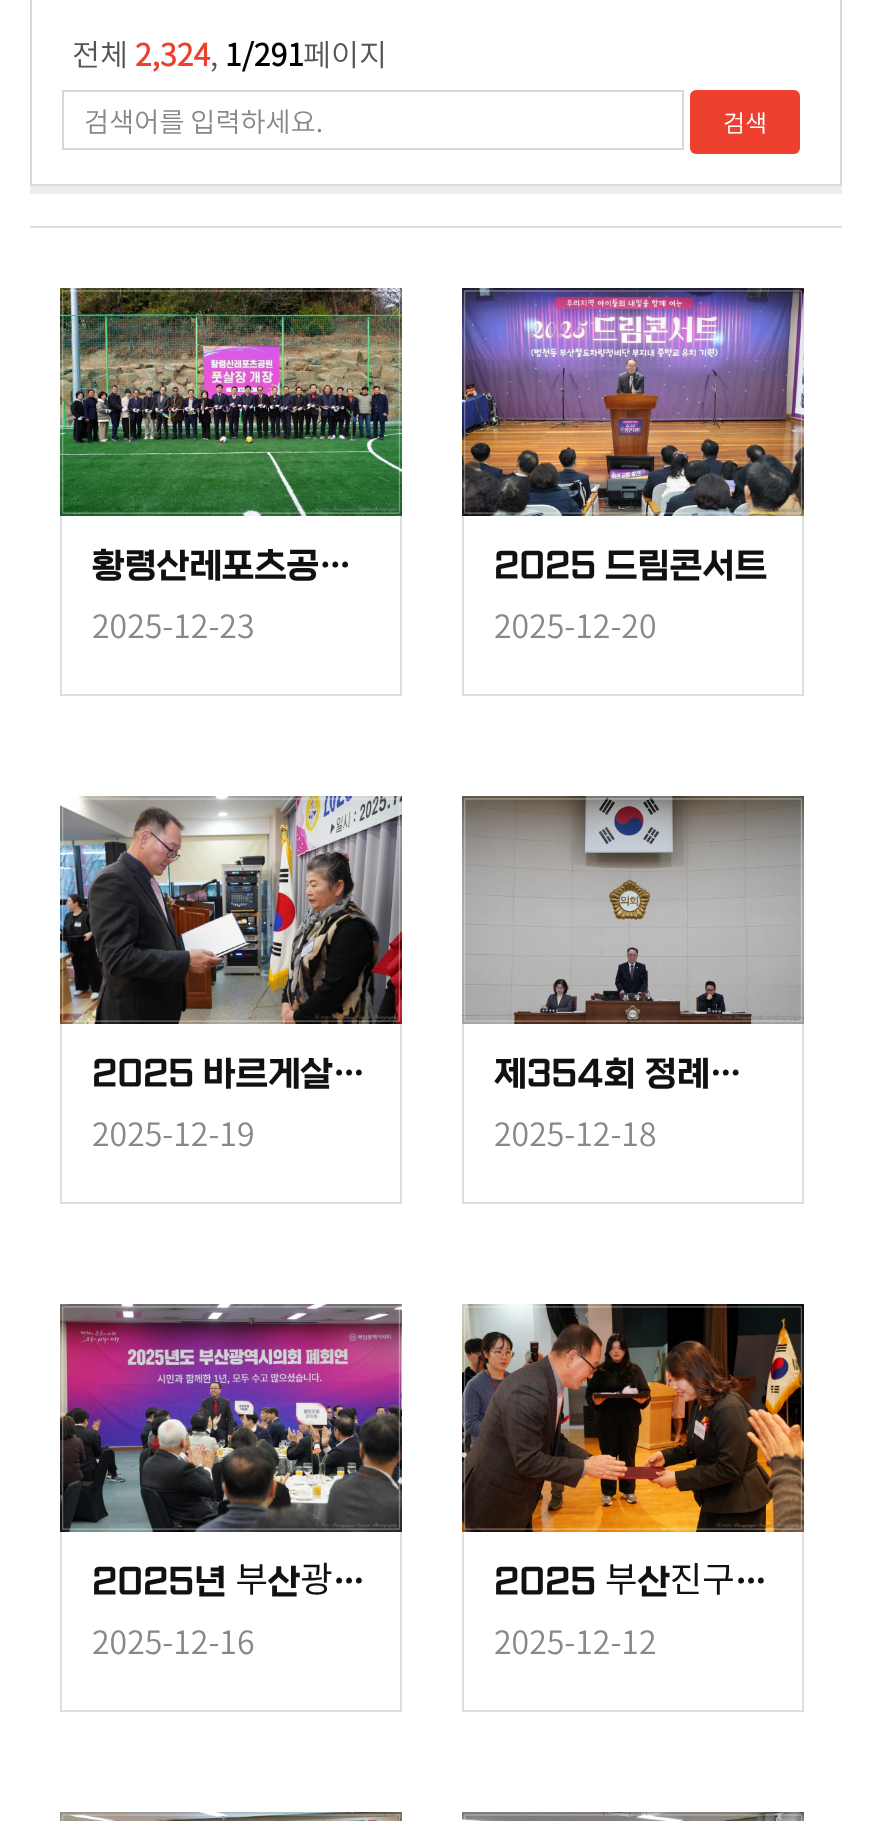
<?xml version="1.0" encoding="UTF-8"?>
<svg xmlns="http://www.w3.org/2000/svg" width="872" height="1821">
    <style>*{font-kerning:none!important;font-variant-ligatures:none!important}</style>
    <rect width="100%" height="100%" fill="#FFFFFF"/>
    <rect x="30" y="186" width="812" height="8" fill="#EDEDED"/>
    <rect x="31" y="-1" width="810" height="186" fill="none" stroke="#D9D9D9" stroke-width="2"/>
    <text x="72" y="66" font-family="Noto Sans KR" font-size="30.5" font-weight="300" fill="#555555">전체</text>
    <text x="135" y="66" font-family="Noto Sans KR" font-size="30.5" font-weight="700" fill="#EE402E">2,324</text>
    <text x="210" y="66" font-family="Noto Sans KR" font-size="30.5" font-weight="300" fill="#555555">,</text>
    <text x="225" y="66" font-family="Noto Sans KR" font-size="30.5" font-weight="700" fill="#000000">1/291</text>
    <text x="303" y="66" font-family="Noto Sans KR" font-size="30.5" font-weight="300" fill="#555555">페이지</text>
    <rect x="63" y="91" width="620" height="58" fill="none" stroke="#D9D9D9" stroke-width="2"/>
    <text x="84" y="132" font-family="Noto Sans KR" font-size="27.25" font-weight="300" fill="#888888">검색어를 입력하세요.</text>
    <rect x="690" y="90" width="110" height="64" rx="6" fill="#EE402E"/>
    <text x="723" y="132" font-family="Noto Sans KR" font-size="24" font-weight="300" fill="#FFFFFF">검색</text>
    <rect x="30" y="226" width="812" height="2" fill="#DDDDDD"/>
    <image x="60" y="288" width="342" height="228" href="img_01.png"/>
    <rect x="400" y="516" width="2" height="180" fill="#DDDDDD"/>
    <rect x="60" y="694" width="342" height="2" fill="#DDDDDD"/>
    <rect x="60" y="516" width="2" height="180" fill="#DDDDDD"/>
    <text x="92" y="576" font-family="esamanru" font-size="35.25" font-weight="500" fill="#111111">황령산레포츠공…</text>
    <text x="92" y="638" font-family="Noto Sans KR" font-size="32" font-weight="300" fill="#888888">2025-12-23</text>
    <image x="462" y="288" width="342" height="228" href="img_02.png"/>
    <rect x="802" y="516" width="2" height="180" fill="#DDDDDD"/>
    <rect x="462" y="694" width="342" height="2" fill="#DDDDDD"/>
    <rect x="462" y="516" width="2" height="180" fill="#DDDDDD"/>
    <text x="494" y="576" font-family="esamanru" font-size="35.25" font-weight="500" fill="#111111">2025 드림콘서트</text>
    <text x="494" y="638" font-family="Noto Sans KR" font-size="32" font-weight="300" fill="#888888">2025-12-20</text>
    <image x="60" y="796" width="342" height="228" href="img_03.png"/>
    <rect x="400" y="1024" width="2" height="180" fill="#DDDDDD"/>
    <rect x="60" y="1202" width="342" height="2" fill="#DDDDDD"/>
    <rect x="60" y="1024" width="2" height="180" fill="#DDDDDD"/>
    <text x="92" y="1084" font-family="esamanru" font-size="35.25" font-weight="500" fill="#111111">2025 바르게살…</text>
    <text x="92" y="1146" font-family="Noto Sans KR" font-size="32" font-weight="300" fill="#888888">2025-12-19</text>
    <image x="462" y="796" width="342" height="228" href="img_04.png"/>
    <rect x="802" y="1024" width="2" height="180" fill="#DDDDDD"/>
    <rect x="462" y="1202" width="342" height="2" fill="#DDDDDD"/>
    <rect x="462" y="1024" width="2" height="180" fill="#DDDDDD"/>
    <text x="494" y="1084" font-family="esamanru" font-size="35.25" font-weight="500" fill="#111111">제354회 정례…</text>
    <text x="494" y="1146" font-family="Noto Sans KR" font-size="32" font-weight="300" fill="#888888">2025-12-18</text>
    <image x="60" y="1304" width="342" height="228" href="img_05.png"/>
    <rect x="400" y="1532" width="2" height="180" fill="#DDDDDD"/>
    <rect x="60" y="1710" width="342" height="2" fill="#DDDDDD"/>
    <rect x="60" y="1532" width="2" height="180" fill="#DDDDDD"/>
    <text x="92" y="1592" font-family="esamanru" font-size="35.25" font-weight="500" fill="#111111">2025년 부산광…</text>
    <text x="92" y="1654" font-family="Noto Sans KR" font-size="32" font-weight="300" fill="#888888">2025-12-16</text>
    <image x="462" y="1304" width="342" height="228" href="img_06.png"/>
    <rect x="802" y="1532" width="2" height="180" fill="#DDDDDD"/>
    <rect x="462" y="1710" width="342" height="2" fill="#DDDDDD"/>
    <rect x="462" y="1532" width="2" height="180" fill="#DDDDDD"/>
    <text x="494" y="1592" font-family="esamanru" font-size="35.25" font-weight="500" fill="#111111">2025 부산진구…</text>
    <text x="494" y="1654" font-family="Noto Sans KR" font-size="32" font-weight="300" fill="#888888">2025-12-12</text>
    <image x="60" y="1812" width="342" height="9" href="img_07.png"/>
    <image x="462" y="1812" width="342" height="9" href="img_08.png"/>
</svg>
